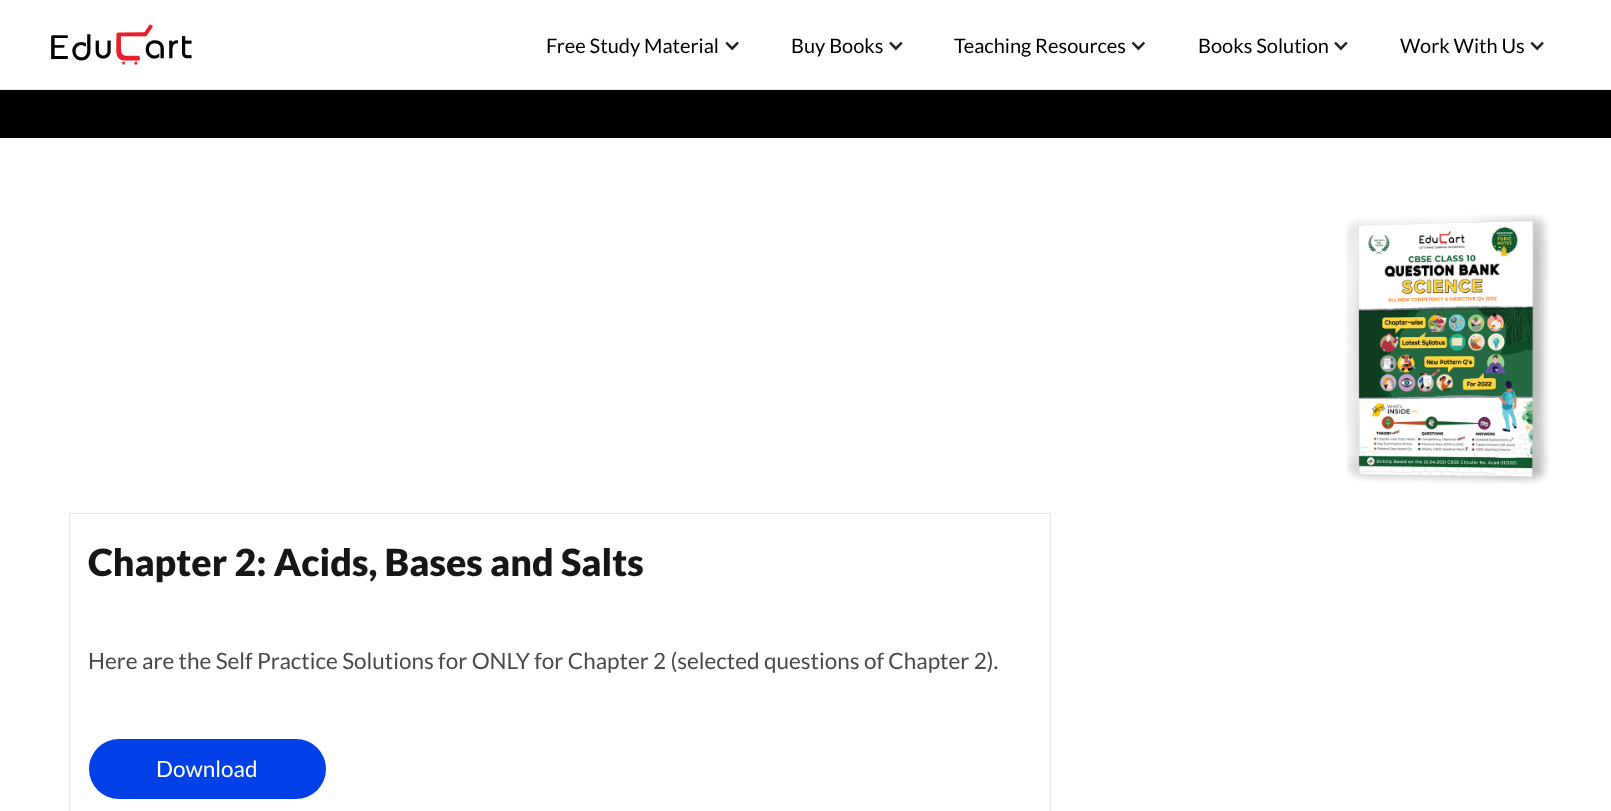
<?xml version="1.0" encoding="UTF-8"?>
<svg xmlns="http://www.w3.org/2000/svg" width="1611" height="811">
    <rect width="100%" height="100%" fill="#FFFFFF"/>
    <rect x="0" y="89" width="1611" height="1" fill="#E5E5E5"/>
    <image x="51" y="24" width="141" height="41" href="img_01.png"/>
    <text x="546" y="53" font-family="Lato" font-size="20" fill="#000000">Free Study Material</text>
    <image x="725" y="41" width="14" height="10" href="img_02.png"/>
    <text x="791" y="53" font-family="Lato" font-size="20" fill="#000000">Buy Books</text>
    <image x="889" y="41" width="14" height="10" href="img_03.png"/>
    <text x="954" y="53" font-family="Lato" font-size="20" fill="#000000">Teaching Resources</text>
    <image x="1131" y="41" width="15" height="10" href="img_04.png"/>
    <text x="1198" y="53" font-family="Lato" font-size="20" fill="#000000">Books Solution</text>
    <image x="1334" y="41" width="14" height="10" href="img_03.png"/>
    <text x="1400" y="53" font-family="Lato" font-size="20" fill="#000000">Work With Us</text>
    <image x="1530" y="41" width="14" height="10" href="img_02.png"/>
    <rect x="0" y="90" width="1611" height="48" fill="#000000"/>
    <image x="1346" y="214" width="204" height="270" href="img_05.png"/>
    <rect x="69.5" y="513.5" width="981" height="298" fill="none" stroke="#E5E5E5"/>
    <text x="88" y="576" font-family="Lato" font-size="37.5" font-weight="900" fill="#161616">Chapter 2: Acids, Bases and Salts</text>
    <text x="88" y="669" font-family="Lato" font-size="22.5" fill="#494949">Here are the Self Practice Solutions for ONLY for Chapter 2 (selected questions of Chapter 2).</text>
    <rect x="89" y="739" width="237" height="60" rx="30" fill="#0041E7"/>
    <text x="156" y="777" font-family="Lato" font-size="22.5" fill="#FFFFFF">Download</text>
</svg>
